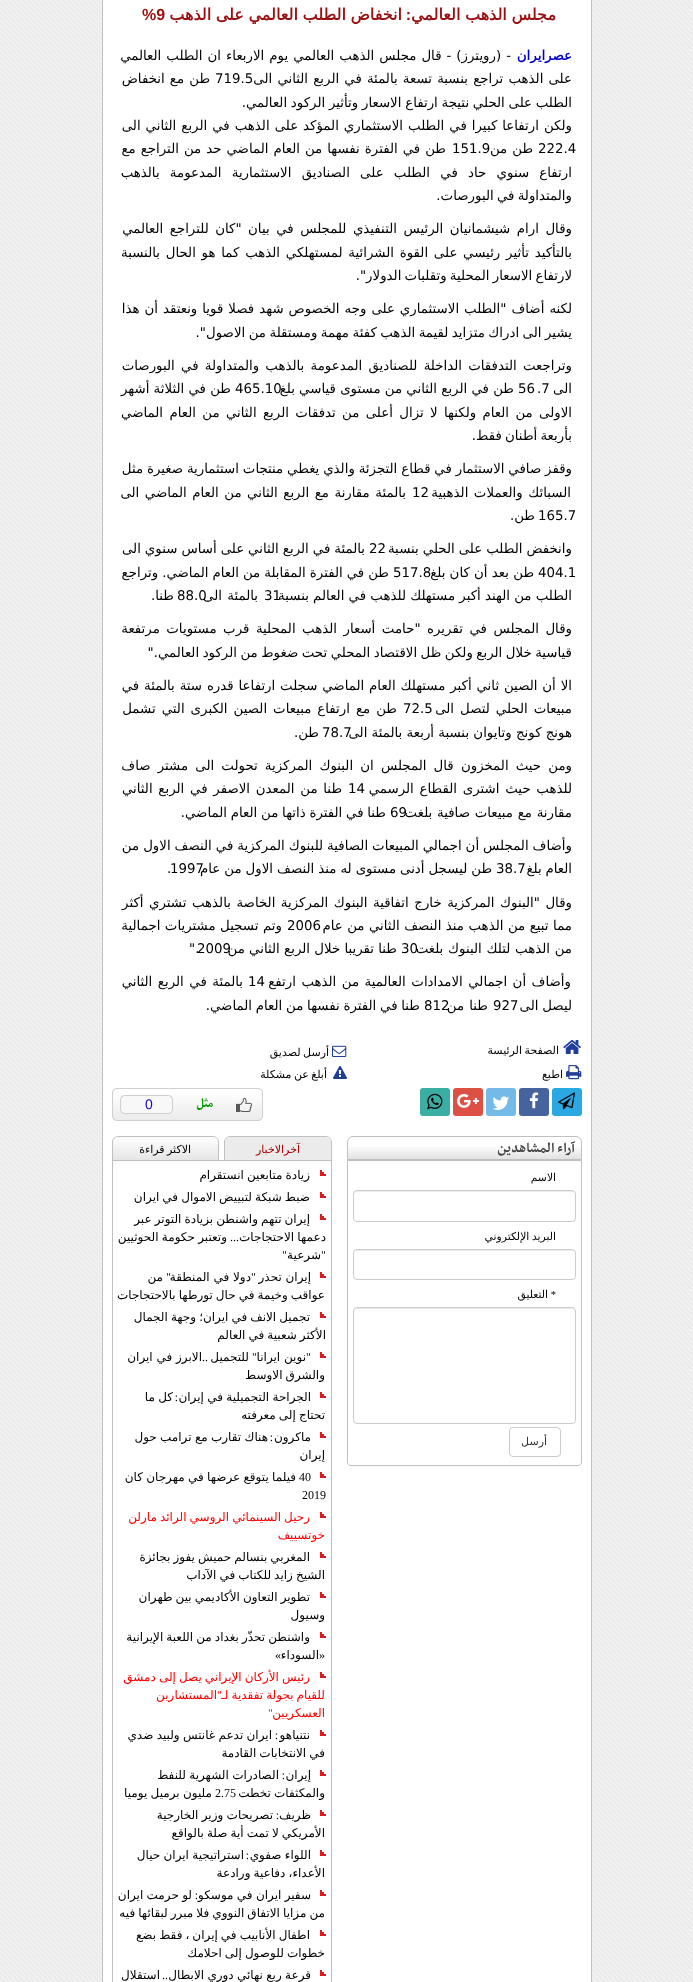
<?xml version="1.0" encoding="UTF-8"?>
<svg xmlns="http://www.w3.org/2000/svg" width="693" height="1982">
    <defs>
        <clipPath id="clip1"><path d="M 230 1136 H 326 C 329.5 1136 332 1138.5 332 1142 V 1160 H 224 V 1142 C 224 1138.5 226.5 1136 230 1136 Z"/></clipPath>
        <linearGradient id="g1" gradientUnits="userSpaceOnUse" x1="278" y1="1137" x2="278" y2="1160"><stop offset="0" stop-color="#FFFFFF"/><stop offset="1" stop-color="#E5E5E5"/></linearGradient>
        <clipPath id="clip2"><path d="M 118 1136 H 213 C 216.5 1136 219 1138.5 219 1142 V 1160 H 112 V 1142 C 112 1138.5 114.5 1136 118 1136 Z"/></clipPath>
        <linearGradient id="g2" gradientUnits="userSpaceOnUse" x1="166" y1="1137" x2="166" y2="1160"><stop offset="0" stop-color="#FFFFFF"/><stop offset="1" stop-color="#E5E5E5"/></linearGradient>
    </defs>
    <rect width="100%" height="100%" fill="#FFFFFF"/>
    <image x="0" y="0" width="693" height="1982" href="img_01.png"/>
    <rect x="103" y="0" width="488" height="1982" fill="#FFFFFF"/>
    <rect x="591" y="0" width="1" height="1982" fill="#C0C0C0"/>
    <rect x="102" y="0" width="1" height="1982" fill="#C0C0C0"/>
    <text x="556" y="20" word-spacing="-0.5" font-family="DejaVu Sans" font-size="16" font-weight="700" direction="rtl" fill="#9A1010">مجلس الذهب العالمي</text>
    <text x="411" y="20" font-family="Liberation Sans" font-size="16" font-weight="700" direction="rtl" fill="#9A1010">:</text>
    <text x="402" y="20" word-spacing="-0.5" font-family="DejaVu Sans" font-size="16" font-weight="700" direction="rtl" fill="#9A1010">انخفاض الطلب العالمي على الذهب</text>
    <text x="142" y="20" font-family="Liberation Sans" font-size="16" font-weight="700" fill="#9A1010">%9</text>
    <text x="572" y="60" font-family="DejaVu Sans" font-size="13.35" font-weight="700" direction="rtl" fill="#0000CD">عصرایران</text>
    <text x="511" y="60" word-spacing="0.75" font-family="DejaVu Sans" font-size="13.35" direction="rtl" fill="#000000">- (رويترز) - قال مجلس الذهب العالمي يوم الاربعاء ان الطلب العالمي</text>
    <text x="572" y="83" word-spacing="0.9" font-family="DejaVu Sans" font-size="13.35" direction="rtl" fill="#000000">على الذهب تراجع بنسبة تسعة بالمئة في الربع الثاني الى</text>
    <text x="215" y="83" font-family="DejaVu Sans" font-size="13.35" fill="#000000">719.5</text>
    <text x="210" y="83" word-spacing="0.9" font-family="DejaVu Sans" font-size="13.35" direction="rtl" fill="#000000">طن مع انخفاض</text>
    <text font-family="DejaVu Sans" font-size="13.35" direction="rtl" fill="#000000">
        <tspan x="572" y="107" word-spacing="-0.5">الطلب على الحلي نتيجة ارتفاع الاسعار وتأثير الركود العالمي.</tspan>
        <tspan x="572" y="130" word-spacing="0.75">ولكن ارتفاعا كبيرا في الطلب الاستثماري المؤكد على الذهب في الربع الثاني الى</tspan>
    </text>
    <text x="538" y="153" font-family="DejaVu Sans" font-size="13.35" fill="#000000">222.4</text>
    <text x="533" y="153" word-spacing="0.75" font-family="DejaVu Sans" font-size="13.35" direction="rtl" fill="#000000">طن من</text>
    <text x="452" y="153" font-family="DejaVu Sans" font-size="13.35" fill="#000000">151.9</text>
    <text x="446" y="153" word-spacing="0.75" font-family="DejaVu Sans" font-size="13.35" direction="rtl" fill="#000000">طن في الفترة نفسها من العام الماضي حد من التراجع مع</text>
    <text font-family="DejaVu Sans" font-size="13.35" direction="rtl" fill="#000000">
        <tspan x="572" y="177" word-spacing="6">ارتفاع سنوي حاد في الطلب على الصناديق الاستثمارية المدعومة بالذهب</tspan>
        <tspan x="572" y="200" word-spacing="-1">والمتداولة في البورصات.</tspan>
    </text>
    <text font-family="DejaVu Sans" font-size="13.35" direction="rtl" fill="#000000">
        <tspan x="572" y="233" word-spacing="2.25">وقال ارام شيشمانيان الرئيس التنفيذي للمجلس في بيان "كان للتراجع العالمي</tspan>
        <tspan x="572" y="257" word-spacing="1.5">بالتأكيد تأثير رئيسي على القوة الشرائية لمستهلكي الذهب كما هو الحال بالنسبة</tspan>
        <tspan x="572" y="280" word-spacing="-1">لارتفاع الاسعار المحلية وتقلبات الدولار".</tspan>
    </text>
    <text font-family="DejaVu Sans" font-size="13.35" direction="rtl" fill="#000000">
        <tspan x="572" y="313" word-spacing="0.75">لكنه أضاف "الطلب الاستثماري على وجه الخصوص شهد فصلا قويا ونعتقد أن هذا</tspan>
        <tspan x="572" y="337" word-spacing="-0.75">يشير الى ادراك متزايد لقيمة الذهب كفئة مهمة ومستقلة من الاصول".</tspan>
    </text>
    <text font-family="DejaVu Sans" font-size="13.35" direction="rtl" fill="#000000">
        <tspan x="572" y="370" word-spacing="2">وتراجعت التدفقات الداخلة للصناديق المدعومة بالذهب والمتداولة في البورصات</tspan>
        <tspan x="572" y="393">الى</tspan>
    </text>
    <text x="537" y="393" font-family="DejaVu Sans" font-size="13.35" fill="#000000">.7</text>
    <text x="518" y="393" font-family="DejaVu Sans" font-size="13.35" fill="#000000">56</text>
    <text x="235" y="393" font-family="DejaVu Sans" font-size="13.35" fill="#000000">465.10</text>
    <text x="514" y="393" font-family="DejaVu Sans" font-size="13.35" direction="rtl" fill="#000000">طن في الربع الثاني من مستوى قياسي بلغ</text>
    <text x="231" y="393" font-family="DejaVu Sans" font-size="13.35" direction="rtl" fill="#000000">طن في الثلاثة أشهر</text>
    <text font-family="DejaVu Sans" font-size="13.35" direction="rtl" fill="#000000">
        <tspan x="572" y="417" word-spacing="2.1">الاولى من العام ولكنها لا تزال أعلى من تدفقات الربع الثاني من العام الماضي</tspan>
        <tspan x="572" y="440" word-spacing="-1">بأربعة أطنان فقط.</tspan>
    </text>
    <text x="572" y="473" word-spacing="-0.4" font-family="DejaVu Sans" font-size="13.35" direction="rtl" fill="#000000">وقفز صافي الاستثمار في قطاع التجزئة والذي يغطي منتجات استثمارية صغيرة مثل</text>
    <text x="571" y="497" word-spacing="1.25" font-family="DejaVu Sans" font-size="13.35" direction="rtl" fill="#000000">السبائك والعملات الذهبية</text>
    <text x="412" y="497" font-family="DejaVu Sans" font-size="13.35" fill="#000000">12</text>
    <text x="406" y="497" word-spacing="1.25" font-family="DejaVu Sans" font-size="13.35" direction="rtl" fill="#000000">بالمئة مقارنة مع الربع الثاني من العام الماضي الى</text>
    <text x="538" y="520" font-family="DejaVu Sans" font-size="13.35" fill="#000000">165.7</text>
    <text x="535" y="520" font-family="DejaVu Sans" font-size="13.35" direction="rtl" fill="#000000">طن.</text>
    <text x="572" y="553" word-spacing="-0.25" font-family="DejaVu Sans" font-size="13.35" direction="rtl" fill="#000000">وانخفض الطلب على الحلي بنسبة</text>
    <text x="369" y="553" font-family="DejaVu Sans" font-size="13.35" fill="#000000">22</text>
    <text x="365" y="553" word-spacing="-0.25" font-family="DejaVu Sans" font-size="13.35" direction="rtl" fill="#000000">بالمئة في الربع الثاني على أساس سنوي الى</text>
    <text x="538" y="577" font-family="DejaVu Sans" font-size="13.35" fill="#000000">404.1</text>
    <text x="534" y="577" font-family="DejaVu Sans" font-size="13.35" direction="rtl" fill="#000000">طن بعد أن كان بلغ</text>
    <text x="393" y="577" font-family="DejaVu Sans" font-size="13.35" fill="#000000">517.8</text>
    <text x="389" y="577" word-spacing="-0.25" font-family="DejaVu Sans" font-size="13.35" direction="rtl" fill="#000000">طن في الفترة المقابلة من العام الماضي. وتراجع</text>
    <text x="264" y="600" font-family="DejaVu Sans" font-size="13.35" fill="#000000">31</text>
    <text x="572" y="600" font-family="DejaVu Sans" font-size="13.35" direction="rtl" fill="#000000">الطلب من الهند أكبر مستهلك للذهب في العالم بنسبة</text>
    <text x="177" y="600" font-family="DejaVu Sans" font-size="13.35" fill="#000000">88.0</text>
    <text x="258" y="600" word-spacing="1" font-family="DejaVu Sans" font-size="13.35" direction="rtl" fill="#000000">بالمئة الى</text>
    <text x="174" y="600" font-family="DejaVu Sans" font-size="13.35" direction="rtl" fill="#000000">طنا.</text>
    <text font-family="DejaVu Sans" font-size="13.35" direction="rtl" fill="#000000">
        <tspan x="572" y="633" word-spacing="2.25">وقال المجلس في تقريره "حامت أسعار الذهب المحلية قرب مستويات مرتفعة</tspan>
        <tspan x="572" y="657" word-spacing="-0.75">قياسية خلال الربع ولكن ظل الاقتصاد المحلي تحت ضغوط من الركود العالمي."</tspan>
    </text>
    <text font-family="DejaVu Sans" font-size="13.35" direction="rtl" fill="#000000">
        <tspan x="572" y="690" word-spacing="0.6">الا أن الصين ثاني أكبر مستهلك العام الماضي سجلت ارتفاعا قدره ستة بالمئة في</tspan>
        <tspan x="572" y="713" word-spacing="1.75">مبيعات الحلي لتصل الى</tspan>
    </text>
    <text x="403" y="713" font-family="DejaVu Sans" font-size="13.35" fill="#000000">72.5</text>
    <text x="397" y="713" word-spacing="1.75" font-family="DejaVu Sans" font-size="13.35" direction="rtl" fill="#000000">طن مع ارتفاع مبيعات الصين الكبرى التي تشمل</text>
    <text x="322" y="737" font-family="DejaVu Sans" font-size="13.35" fill="#000000">78.7</text>
    <text x="572" y="737" font-family="DejaVu Sans" font-size="13.35" direction="rtl" fill="#000000">هونج كونج وتايوان بنسبة أربعة بالمئة الى</text>
    <text x="319" y="737" font-family="DejaVu Sans" font-size="13.35" direction="rtl" fill="#000000">طن.</text>
    <text font-family="DejaVu Sans" font-size="13.35" direction="rtl" fill="#000000">
        <tspan x="572" y="770" word-spacing="2.9">ومن حيث المخزون قال المجلس ان البنوك المركزية تحولت الى مشتر صاف</tspan>
        <tspan x="572" y="793" word-spacing="1.5">للذهب حيث اشترى القطاع الرسمي</tspan>
    </text>
    <text x="348" y="793" font-family="DejaVu Sans" font-size="13.35" fill="#000000">14</text>
    <text x="342" y="793" word-spacing="1.5" font-family="DejaVu Sans" font-size="13.35" direction="rtl" fill="#000000">طنا من المعدن الاصفر في الربع الثاني</text>
    <text x="390" y="817" font-family="DejaVu Sans" font-size="13.35" fill="#000000">69</text>
    <text x="572" y="817" word-spacing="0.5" font-family="DejaVu Sans" font-size="13.35" direction="rtl" fill="#000000">مقارنة مع مبيعات صافية بلغت</text>
    <text x="386" y="817" word-spacing="-0.5" font-family="DejaVu Sans" font-size="13.35" direction="rtl" fill="#000000">طنا في الفترة ذاتها من العام الماضي.</text>
    <text font-family="DejaVu Sans" font-size="13.35" direction="rtl" fill="#000000">
        <tspan x="572" y="850" word-spacing="-0.25">وأضاف المجلس أن اجمالي المبيعات الصافية للبنوك المركزية في النصف الاول من</tspan>
        <tspan x="572" y="873" word-spacing="-0.5">العام بلغ</tspan>
    </text>
    <text x="496" y="873" font-family="DejaVu Sans" font-size="13.35" fill="#000000">38.7</text>
    <text x="170" y="873" font-family="DejaVu Sans" font-size="13.35" fill="#000000">1997</text>
    <text x="492" y="873" word-spacing="-0.25" font-family="DejaVu Sans" font-size="13.35" direction="rtl" fill="#000000">طن ليسجل أدنى مستوى له منذ النصف الاول من عام</text>
    <text x="167" y="873" font-family="DejaVu Sans" font-size="13.35" fill="#000000">.</text>
    <text font-family="DejaVu Sans" font-size="13.35" direction="rtl" fill="#000000">
        <tspan x="572" y="907" word-spacing="1.25">وقال "البنوك المركزية خارج اتفاقية البنوك المركزية الخاصة بالذهب تشتري أكثر</tspan>
        <tspan x="572" y="930" word-spacing="0.25">مما تبيع من الذهب منذ النصف الثاني من عام</tspan>
    </text>
    <text x="287" y="930" font-family="DejaVu Sans" font-size="13.35" fill="#000000">2006</text>
    <text x="282" y="930" word-spacing="0.25" font-family="DejaVu Sans" font-size="13.35" direction="rtl" fill="#000000">وتم تسجيل مشتريات اجمالية</text>
    <text x="401" y="953" font-family="DejaVu Sans" font-size="13.35" fill="#000000">30</text>
    <text x="572" y="953" word-spacing="0.5" font-family="DejaVu Sans" font-size="13.35" direction="rtl" fill="#000000">من الذهب لتلك البنوك بلغت</text>
    <text x="197" y="953" font-family="DejaVu Sans" font-size="13.35" fill="#000000">2009</text>
    <text x="397" y="953" font-family="DejaVu Sans" font-size="13.35" direction="rtl" fill="#000000">طنا تقريبا خلال الربع الثاني من</text>
    <text x="189" y="953" font-family="DejaVu Sans" font-size="13.35" fill="#000000">".</text>
    <text x="571" y="986" word-spacing="1.25" font-family="DejaVu Sans" font-size="13.35" direction="rtl" fill="#000000">وأضاف أن اجمالي الامدادات العالمية من الذهب ارتفع</text>
    <text x="248" y="986" font-family="DejaVu Sans" font-size="13.35" fill="#000000">14</text>
    <text x="243" y="986" word-spacing="1.25" font-family="DejaVu Sans" font-size="13.35" direction="rtl" fill="#000000">بالمئة في الربع الثاني</text>
    <text x="572" y="1010" word-spacing="-0.5" font-family="DejaVu Sans" font-size="13.35" direction="rtl" fill="#000000">ليصل الى</text>
    <text x="493" y="1010" font-family="DejaVu Sans" font-size="13.35" fill="#000000">927</text>
    <text x="424" y="1010" font-family="DejaVu Sans" font-size="13.35" fill="#000000">812</text>
    <text x="488" y="1010" word-spacing="1" font-family="DejaVu Sans" font-size="13.35" direction="rtl" fill="#000000">طنا من</text>
    <text x="420" y="1010" word-spacing="-0.5" font-family="DejaVu Sans" font-size="13.35" direction="rtl" fill="#000000">طنا في الفترة نفسها من العام الماضي.</text>
    <image x="563" y="1040" width="18" height="14" href="img_02.png"/>
    <text x="559" y="1054" word-spacing="-1" font-family="DejaVu Sans" font-size="11" direction="rtl" fill="#000000">الصفحة الرئيسة</text>
    <image x="332" y="1045" width="15" height="12" href="img_03.png"/>
    <text x="329" y="1056" word-spacing="-1" font-family="DejaVu Sans" font-size="11" direction="rtl" fill="#000000">أرسل لصديق</text>
    <image x="566" y="1065" width="16" height="15" href="img_04.png"/>
    <text x="563" y="1078" font-family="DejaVu Sans" font-size="11" direction="rtl" fill="#000000">اطبع</text>
    <image x="333" y="1066" width="14" height="13" href="img_05.png"/>
    <text x="327" y="1078" word-spacing="-1" font-family="DejaVu Sans" font-size="11" direction="rtl" fill="#000000">أبلغ عن مشكلة</text>
    <rect x="552" y="1088" width="30" height="28" rx="3" fill="#2AA8E2"/>
    <image x="558" y="1092" width="17" height="18" href="img_06.png"/>
    <rect x="519" y="1088" width="30" height="28" rx="3" fill="#47639E"/>
    <image x="529" y="1092" width="10" height="17" href="img_07.png"/>
    <rect x="486" y="1088" width="30" height="28" rx="3" fill="#74BAE9"/>
    <image x="492" y="1096" width="17" height="14" href="img_08.png"/>
    <rect x="453" y="1088" width="30" height="28" rx="3" fill="#DD5044"/>
    <image x="457" y="1094" width="22" height="14" href="img_09.png"/>
    <rect x="420" y="1088" width="30" height="28" rx="3" fill="#3BAEA4"/>
    <image x="427" y="1093" width="16" height="17" href="img_10.png"/>
    <image x="112" y="1088" width="151" height="33" href="img_11.png"/>
    <text x="145" y="1109" font-family="Liberation Sans" font-size="14" fill="#1809A6">0</text>
    <image x="348" y="1147" width="233" height="12" href="img_12.png"/>
    <path d="M 353 1136.5 H 576 C 579 1136.5 581.5 1139 581.5 1142 V 1159.5 H 347.5 V 1142 C 347.5 1139 350 1136.5 353 1136.5 Z" fill="none" stroke="#C0C0C0"/>
    <text x="575" y="1152" font-family="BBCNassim" font-size="16" font-weight="700" direction="rtl" fill="#444444">آراء المشاهدين</text>
    <path d="M 347.5 1160.5 H 581.5 V 1462 C 581.5 1464 580 1465.5 578 1465.5 H 351 C 349 1465.5 347.5 1464 347.5 1462 Z" fill="none" stroke="#C0C0C0"/>
    <text x="556" y="1181" font-family="DejaVu Sans" font-size="10.75" direction="rtl" fill="#000000">الاسم</text>
    <path d="M 357 1192 H 572 C 574 1192 575 1193 575 1195 V 1194 C 575 1192 574 1191 572 1191 H 357 C 355 1191 354 1192 354 1194 V 1195 C 354 1193 355 1192 357 1192 Z" fill="#ECECEC"/>
    <rect x="353.5" y="1190.5" width="222" height="31" rx="3.5" fill="none" stroke="#CCCCCC"/>
    <text x="556" y="1240" word-spacing="-0.75" font-family="DejaVu Sans" font-size="10.75" direction="rtl" fill="#000000">البرید الإلکتروني</text>
    <path d="M 357 1251 H 572 C 574 1251 575 1252 575 1254 V 1253 C 575 1251 574 1250 572 1250 H 357 C 355 1250 354 1251 354 1253 V 1254 C 354 1252 355 1251 357 1251 Z" fill="#ECECEC"/>
    <rect x="353.5" y="1249.5" width="222" height="30" rx="3.5" fill="none" stroke="#CCCCCC"/>
    <text x="556" y="1298" font-family="Liberation Serif" font-size="10.75" direction="rtl" fill="#000000">*</text>
    <text x="548" y="1298" font-family="DejaVu Sans" font-size="10.75" direction="rtl" fill="#000000">التعلیق</text>
    <path d="M 357 1309 H 572 C 574 1309 575 1310 575 1312 V 1311 C 575 1309 574 1308 572 1308 H 357 C 355 1308 354 1309 354 1311 V 1312 C 354 1310 355 1309 357 1309 Z" fill="#ECECEC"/>
    <rect x="353.5" y="1307.5" width="222" height="116" rx="3.5" fill="none" stroke="#CCCCCC"/>
    <rect x="509.5" y="1427.5" width="51" height="29" rx="3.5" fill="none" stroke="#CCCCCC"/>
    <text x="547" y="1445" font-family="DejaVu Sans" font-size="11" direction="rtl" fill="#333333">أرسل</text>
    <g clip-path="url(#clip1)">
        <rect x="224" y="1137" width="108" height="5" fill="url(#g1)"/>
    </g>
    <path d="M 230 1136 H 326 C 329 1136 332 1139 332 1142 V 1160 H 224 V 1142 C 224 1139 227 1136 230 1136 Z M 230 1137 H 326 C 329 1137 331 1139 331 1142 V 1160 H 225 V 1142 C 225 1139 227 1137 230 1137 Z" fill="#C0C0C0" fill-rule="evenodd"/>
    <path d="M 230 1137 H 326 C 329 1137 331 1139 331 1142 V 1160 H 225 V 1142 C 225 1139 227 1137 230 1137 Z" fill="#EBEBEB"/>
    <text x="300" y="1153" font-family="DejaVu Sans" font-size="11" direction="rtl" fill="#AA0002">آخرالاخبار</text>
    <g clip-path="url(#clip2)">
        <rect x="112" y="1137" width="107" height="23" fill="url(#g2)"/>
    </g>
    <path d="M 118 1136 H 213 C 216 1136 219 1139 219 1142 V 1160 H 112 V 1142 C 112 1139 115 1136 118 1136 Z M 118 1137 H 213 C 216 1137 218 1139 218 1142 V 1160 H 113 V 1142 C 113 1139 115 1137 118 1137 Z" fill="#C0C0C0" fill-rule="evenodd"/>
    <text x="191" y="1153" word-spacing="-1" font-family="DejaVu Sans" font-size="11" direction="rtl" fill="#000000">الاکثر قراءة</text>
    <rect x="112.5" y="1160.5" width="219" height="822" fill="none" stroke="#C0C0C0"/>
    <rect x="320" y="1170" width="6" height="6" fill="#DC191D"/>
    <rect x="322" y="1170" width="4" height="2" fill="#FFFFFF"/>
    <rect x="324" y="1172" width="2" height="2" fill="#FFFFFF"/>
    <text x="310" y="1179" word-spacing="-0.75" font-family="DejaVu Sans" font-size="12" direction="rtl" fill="#000000">زيادة متابعين انستقرام</text>
    <rect x="320" y="1192" width="6" height="6" fill="#DC191D"/>
    <rect x="322" y="1192" width="4" height="2" fill="#FFFFFF"/>
    <rect x="324" y="1194" width="2" height="2" fill="#FFFFFF"/>
    <text x="310" y="1201" word-spacing="-0.75" font-family="DejaVu Sans" font-size="12" direction="rtl" fill="#000000">ضبط شبكة لتبييض الاموال في ايران</text>
    <rect x="320" y="1214" width="6" height="6" fill="#DC191D"/>
    <rect x="322" y="1214" width="4" height="2" fill="#FFFFFF"/>
    <rect x="324" y="1216" width="2" height="2" fill="#FFFFFF"/>
    <text x="310" y="1223" word-spacing="-0.75" font-family="DejaVu Sans" font-size="12" direction="rtl" fill="#000000">إيران تتهم واشنطن بزيادة التوتر عبر</text>
    <text x="326" y="1241" word-spacing="-0.5" font-family="DejaVu Sans" font-size="12" direction="rtl" fill="#000000">دعمها الاحتجاجات</text>
    <text x="239" y="1241" font-family="Liberation Serif" font-size="12" direction="rtl" fill="#000000">...</text>
    <text x="227" y="1241" word-spacing="-0.5" font-family="DejaVu Sans" font-size="12" direction="rtl" fill="#000000">وتعتبر حكومة الحوثيين</text>
    <text x="326" y="1259" font-family="Liberation Serif" font-size="12" direction="rtl" fill="#000000">"</text>
    <text x="321" y="1259" font-family="DejaVu Sans" font-size="12" direction="rtl" fill="#000000">شرعية</text>
    <text x="287" y="1259" font-family="Liberation Serif" font-size="12" direction="rtl" fill="#000000">"</text>
    <rect x="320" y="1272" width="6" height="6" fill="#DC191D"/>
    <rect x="322" y="1272" width="4" height="2" fill="#FFFFFF"/>
    <rect x="324" y="1274" width="2" height="2" fill="#FFFFFF"/>
    <text x="311" y="1281" font-family="DejaVu Sans" font-size="12" direction="rtl" fill="#000000">إيران تحذر</text>
    <text x="256" y="1281" font-family="Liberation Serif" font-size="12" direction="rtl" fill="#000000">"</text>
    <text x="251" y="1281" font-family="DejaVu Sans" font-size="12" direction="rtl" fill="#000000">دولا في المنطقة</text>
    <text x="171" y="1281" font-family="Liberation Serif" font-size="12" direction="rtl" fill="#000000">"</text>
    <text x="163" y="1281" font-family="DejaVu Sans" font-size="12" direction="rtl" fill="#000000">من</text>
    <text x="325" y="1299" word-spacing="-0.75" font-family="DejaVu Sans" font-size="12" direction="rtl" fill="#000000">عواقب وخيمة في حال تورطها بالاحتجاجات</text>
    <rect x="320" y="1312" width="6" height="6" fill="#DC191D"/>
    <rect x="322" y="1312" width="4" height="2" fill="#FFFFFF"/>
    <rect x="324" y="1314" width="2" height="2" fill="#FFFFFF"/>
    <text x="310" y="1321" word-spacing="-0.75" font-family="DejaVu Sans" font-size="12" direction="rtl" fill="#000000">تجميل الانف في ايران؛ وجهة الجمال</text>
    <text x="326" y="1339" word-spacing="-0.75" font-family="DejaVu Sans" font-size="12" direction="rtl" fill="#000000">الأكثر شعبية في العالم</text>
    <rect x="320" y="1352" width="6" height="6" fill="#DC191D"/>
    <rect x="322" y="1352" width="4" height="2" fill="#FFFFFF"/>
    <rect x="324" y="1354" width="2" height="2" fill="#FFFFFF"/>
    <text x="311" y="1361" font-family="Liberation Serif" font-size="12" direction="rtl" fill="#000000">"</text>
    <text x="306" y="1361" font-family="DejaVu Sans" font-size="12" direction="rtl" fill="#000000">نوين ايرانا</text>
    <text x="257" y="1361" font-family="Liberation Serif" font-size="12" direction="rtl" fill="#000000">"</text>
    <text x="249" y="1361" font-family="DejaVu Sans" font-size="12" direction="rtl" fill="#000000">للتجميل</text>
    <text x="202" y="1361" font-family="DejaVu Sans" font-size="12" direction="rtl" fill="#000000">الابرز في ايران</text>
    <text x="208" y="1361" font-family="Liberation Serif" font-size="12" direction="rtl" fill="#000000">..</text>
    <text x="325" y="1379" word-spacing="-0.75" font-family="DejaVu Sans" font-size="12" direction="rtl" fill="#000000">والشرق الاوسط</text>
    <rect x="320" y="1392" width="6" height="6" fill="#DC191D"/>
    <rect x="322" y="1392" width="4" height="2" fill="#FFFFFF"/>
    <rect x="324" y="1394" width="2" height="2" fill="#FFFFFF"/>
    <text x="311" y="1401" word-spacing="-0.5" font-family="DejaVu Sans" font-size="12" direction="rtl" fill="#000000">الجراحة التجميلية في إيران</text>
    <text x="178" y="1401" font-family="Liberation Serif" font-size="12" direction="rtl" fill="#000000">:</text>
    <text x="173" y="1401" word-spacing="-0.5" font-family="DejaVu Sans" font-size="12" direction="rtl" fill="#000000">كل ما</text>
    <text x="325" y="1419" word-spacing="-0.75" font-family="DejaVu Sans" font-size="12" direction="rtl" fill="#000000">تحتاج إلى معرفته</text>
    <rect x="320" y="1432" width="6" height="6" fill="#DC191D"/>
    <rect x="322" y="1432" width="4" height="2" fill="#FFFFFF"/>
    <rect x="324" y="1434" width="2" height="2" fill="#FFFFFF"/>
    <text x="311" y="1441" font-family="DejaVu Sans" font-size="12" direction="rtl" fill="#000000">ماكرون</text>
    <text x="273" y="1441" font-family="Liberation Serif" font-size="12" direction="rtl" fill="#000000">:</text>
    <text x="268" y="1441" word-spacing="-0.5" font-family="DejaVu Sans" font-size="12" direction="rtl" fill="#000000">هناك تقارب مع ترامب حول</text>
    <text x="325" y="1459" font-family="DejaVu Sans" font-size="12" direction="rtl" fill="#000000">إيران</text>
    <rect x="320" y="1472" width="6" height="6" fill="#DC191D"/>
    <rect x="322" y="1472" width="4" height="2" fill="#FFFFFF"/>
    <rect x="324" y="1474" width="2" height="2" fill="#FFFFFF"/>
    <text x="299" y="1481" font-family="Liberation Serif" font-size="12" fill="#000000">40</text>
    <text x="296" y="1481" word-spacing="-0.5" font-family="DejaVu Sans" font-size="12" direction="rtl" fill="#000000">فيلما يتوقع عرضها في مهرجان كان</text>
    <text x="302" y="1499" font-family="Liberation Serif" font-size="12" fill="#000000">2019</text>
    <rect x="320" y="1512" width="6" height="6" fill="#DC191D"/>
    <rect x="322" y="1512" width="4" height="2" fill="#FFFFFF"/>
    <rect x="324" y="1514" width="2" height="2" fill="#FFFFFF"/>
    <text x="310" y="1521" word-spacing="-0.75" font-family="DejaVu Sans" font-size="12" direction="rtl" fill="#FF0000">رحيل السينمائي الروسي الرائد مارلن</text>
    <text x="325" y="1539" font-family="DejaVu Sans" font-size="12" direction="rtl" fill="#FF0000">خوتسييف</text>
    <rect x="320" y="1552" width="6" height="6" fill="#DC191D"/>
    <rect x="322" y="1552" width="4" height="2" fill="#FFFFFF"/>
    <rect x="324" y="1554" width="2" height="2" fill="#FFFFFF"/>
    <text x="310" y="1561" word-spacing="-0.75" font-family="DejaVu Sans" font-size="12" direction="rtl" fill="#000000">المغربي بنسالم حميش يفوز بجائزة</text>
    <text x="325" y="1579" word-spacing="-0.75" font-family="DejaVu Sans" font-size="12" direction="rtl" fill="#000000">الشيخ زايد للكتاب في الآداب</text>
    <rect x="320" y="1592" width="6" height="6" fill="#DC191D"/>
    <rect x="322" y="1592" width="4" height="2" fill="#FFFFFF"/>
    <rect x="324" y="1594" width="2" height="2" fill="#FFFFFF"/>
    <text x="310" y="1601" word-spacing="-0.75" font-family="DejaVu Sans" font-size="12" direction="rtl" fill="#000000">تطوير التعاون الأكاديمي بين طهران</text>
    <text x="325" y="1619" font-family="DejaVu Sans" font-size="12" direction="rtl" fill="#000000">وسيول</text>
    <rect x="320" y="1632" width="6" height="6" fill="#DC191D"/>
    <rect x="322" y="1632" width="4" height="2" fill="#FFFFFF"/>
    <rect x="324" y="1634" width="2" height="2" fill="#FFFFFF"/>
    <text x="310" y="1641" word-spacing="-0.75" font-family="DejaVu Sans" font-size="12" direction="rtl" fill="#000000">واشنطن تحذّر بغداد من اللعبة الإيرانية</text>
    <text x="325" y="1659" font-family="Liberation Serif" font-size="12" direction="rtl" fill="#000000">«</text>
    <text x="319" y="1659" font-family="DejaVu Sans" font-size="12" direction="rtl" fill="#000000">السوداء</text>
    <text x="281" y="1659" font-family="Liberation Serif" font-size="12" direction="rtl" fill="#000000">»</text>
    <rect x="320" y="1672" width="6" height="6" fill="#DC191D"/>
    <rect x="322" y="1672" width="4" height="2" fill="#FFFFFF"/>
    <rect x="324" y="1674" width="2" height="2" fill="#FFFFFF"/>
    <text x="310" y="1681" word-spacing="-0.75" font-family="DejaVu Sans" font-size="12" direction="rtl" fill="#FF0000">رئيس الأركان الإيراني يصل إلى دمشق</text>
    <text x="222" y="1699" font-family="Liberation Serif" font-size="12" direction="rtl" fill="#FF0000">"</text>
    <text x="325" y="1699" word-spacing="-0.75" font-family="DejaVu Sans" font-size="12" direction="rtl" fill="#FF0000">للقيام بجولة تفقدية لـ</text>
    <text x="217" y="1699" font-family="DejaVu Sans" font-size="12" direction="rtl" fill="#FF0000">المستشارين</text>
    <text x="325" y="1717" font-family="DejaVu Sans" font-size="12" direction="rtl" fill="#FF0000">العسكريين</text>
    <text x="273" y="1717" font-family="Liberation Serif" font-size="12" direction="rtl" fill="#FF0000">"</text>
    <rect x="320" y="1730" width="6" height="6" fill="#DC191D"/>
    <rect x="322" y="1730" width="4" height="2" fill="#FFFFFF"/>
    <rect x="324" y="1732" width="2" height="2" fill="#FFFFFF"/>
    <text x="310" y="1739" font-family="DejaVu Sans" font-size="12" direction="rtl" fill="#000000">نتنياهو</text>
    <text x="278" y="1739" font-family="Liberation Serif" font-size="12" direction="rtl" fill="#000000">:</text>
    <text x="272" y="1739" word-spacing="-0.5" font-family="DejaVu Sans" font-size="12" direction="rtl" fill="#000000">ايران تدعم غانتس ولبيد ضدي</text>
    <text x="325" y="1757" word-spacing="-0.75" font-family="DejaVu Sans" font-size="12" direction="rtl" fill="#000000">في الانتخابات القادمة</text>
    <rect x="320" y="1770" width="6" height="6" fill="#DC191D"/>
    <rect x="322" y="1770" width="4" height="2" fill="#FFFFFF"/>
    <rect x="324" y="1772" width="2" height="2" fill="#FFFFFF"/>
    <text x="311" y="1779" font-family="DejaVu Sans" font-size="12" direction="rtl" fill="#000000">إيران</text>
    <text x="285" y="1779" font-family="Liberation Serif" font-size="12" direction="rtl" fill="#000000">:</text>
    <text x="279" y="1779" word-spacing="-0.5" font-family="DejaVu Sans" font-size="12" direction="rtl" fill="#000000">الصادرات الشهریة للنفط</text>
    <text x="325" y="1797" word-spacing="-0.75" font-family="DejaVu Sans" font-size="12" direction="rtl" fill="#000000">والمكثفات تخطت</text>
    <text x="215" y="1797" font-family="Liberation Serif" font-size="12" fill="#000000">2.75</text>
    <text x="212" y="1797" word-spacing="-0.5" font-family="DejaVu Sans" font-size="12" direction="rtl" fill="#000000">مليون برميل يوميا</text>
    <rect x="320" y="1810" width="6" height="6" fill="#DC191D"/>
    <rect x="322" y="1810" width="4" height="2" fill="#FFFFFF"/>
    <rect x="324" y="1812" width="2" height="2" fill="#FFFFFF"/>
    <text x="311" y="1819" font-family="DejaVu Sans" font-size="12" direction="rtl" fill="#000000">ظريف</text>
    <text x="279" y="1819" font-family="Liberation Serif" font-size="12" direction="rtl" fill="#000000">:</text>
    <text x="273" y="1819" word-spacing="-0.5" font-family="DejaVu Sans" font-size="12" direction="rtl" fill="#000000">تصريحات وزير الخارجية</text>
    <text x="325" y="1837" word-spacing="-0.75" font-family="DejaVu Sans" font-size="12" direction="rtl" fill="#000000">الأمريكي لا تمت أية صلة بالواقع</text>
    <rect x="320" y="1850" width="6" height="6" fill="#DC191D"/>
    <rect x="322" y="1850" width="4" height="2" fill="#FFFFFF"/>
    <rect x="324" y="1852" width="2" height="2" fill="#FFFFFF"/>
    <text x="311" y="1859" word-spacing="-0.5" font-family="DejaVu Sans" font-size="12" direction="rtl" fill="#000000">اللواء صفوي</text>
    <text x="249" y="1859" font-family="Liberation Serif" font-size="12" direction="rtl" fill="#000000">:</text>
    <text x="244" y="1859" word-spacing="-0.5" font-family="DejaVu Sans" font-size="12" direction="rtl" fill="#000000">استراتيجية ايران حيال</text>
    <text x="325" y="1877" word-spacing="-0.75" font-family="DejaVu Sans" font-size="12" direction="rtl" fill="#000000">الأعداء، دفاعية ورادعة</text>
    <rect x="320" y="1890" width="6" height="6" fill="#DC191D"/>
    <rect x="322" y="1890" width="4" height="2" fill="#FFFFFF"/>
    <rect x="324" y="1892" width="2" height="2" fill="#FFFFFF"/>
    <text x="198" y="1899" font-family="Liberation Serif" font-size="12" direction="rtl" fill="#000000">:</text>
    <text x="311" y="1899" word-spacing="-0.5" font-family="DejaVu Sans" font-size="12" direction="rtl" fill="#000000">سفير ايران في موسكو</text>
    <text x="192" y="1899" word-spacing="-0.5" font-family="DejaVu Sans" font-size="12" direction="rtl" fill="#000000">لو حرمت ايران</text>
    <text x="325" y="1917" word-spacing="-0.75" font-family="DejaVu Sans" font-size="12" direction="rtl" fill="#000000">من مزايا الاتفاق النووي فلا مبرر لبقائها فيه</text>
    <rect x="320" y="1930" width="6" height="6" fill="#DC191D"/>
    <rect x="322" y="1930" width="4" height="2" fill="#FFFFFF"/>
    <rect x="324" y="1932" width="2" height="2" fill="#FFFFFF"/>
    <text x="310" y="1939" word-spacing="-0.75" font-family="DejaVu Sans" font-size="12" direction="rtl" fill="#000000">اطفال الأنابيب في إيران ، فقط بضع</text>
    <text x="325" y="1957" word-spacing="-0.75" font-family="DejaVu Sans" font-size="12" direction="rtl" fill="#000000">خطوات للوصول إلى احلامك</text>
    <rect x="320" y="1970" width="6" height="6" fill="#DC191D"/>
    <rect x="322" y="1970" width="4" height="2" fill="#FFFFFF"/>
    <rect x="324" y="1972" width="2" height="2" fill="#FFFFFF"/>
    <text x="311" y="1979" word-spacing="-0.5" font-family="DejaVu Sans" font-size="12" direction="rtl" fill="#000000">قرعة ربع نهائي دوري الابطال</text>
    <text x="160" y="1979" font-family="DejaVu Sans" font-size="12" direction="rtl" fill="#000000">استقلال</text>
    <text x="168" y="1979" font-family="Liberation Serif" font-size="12" direction="rtl" fill="#000000">..</text>
</svg>
